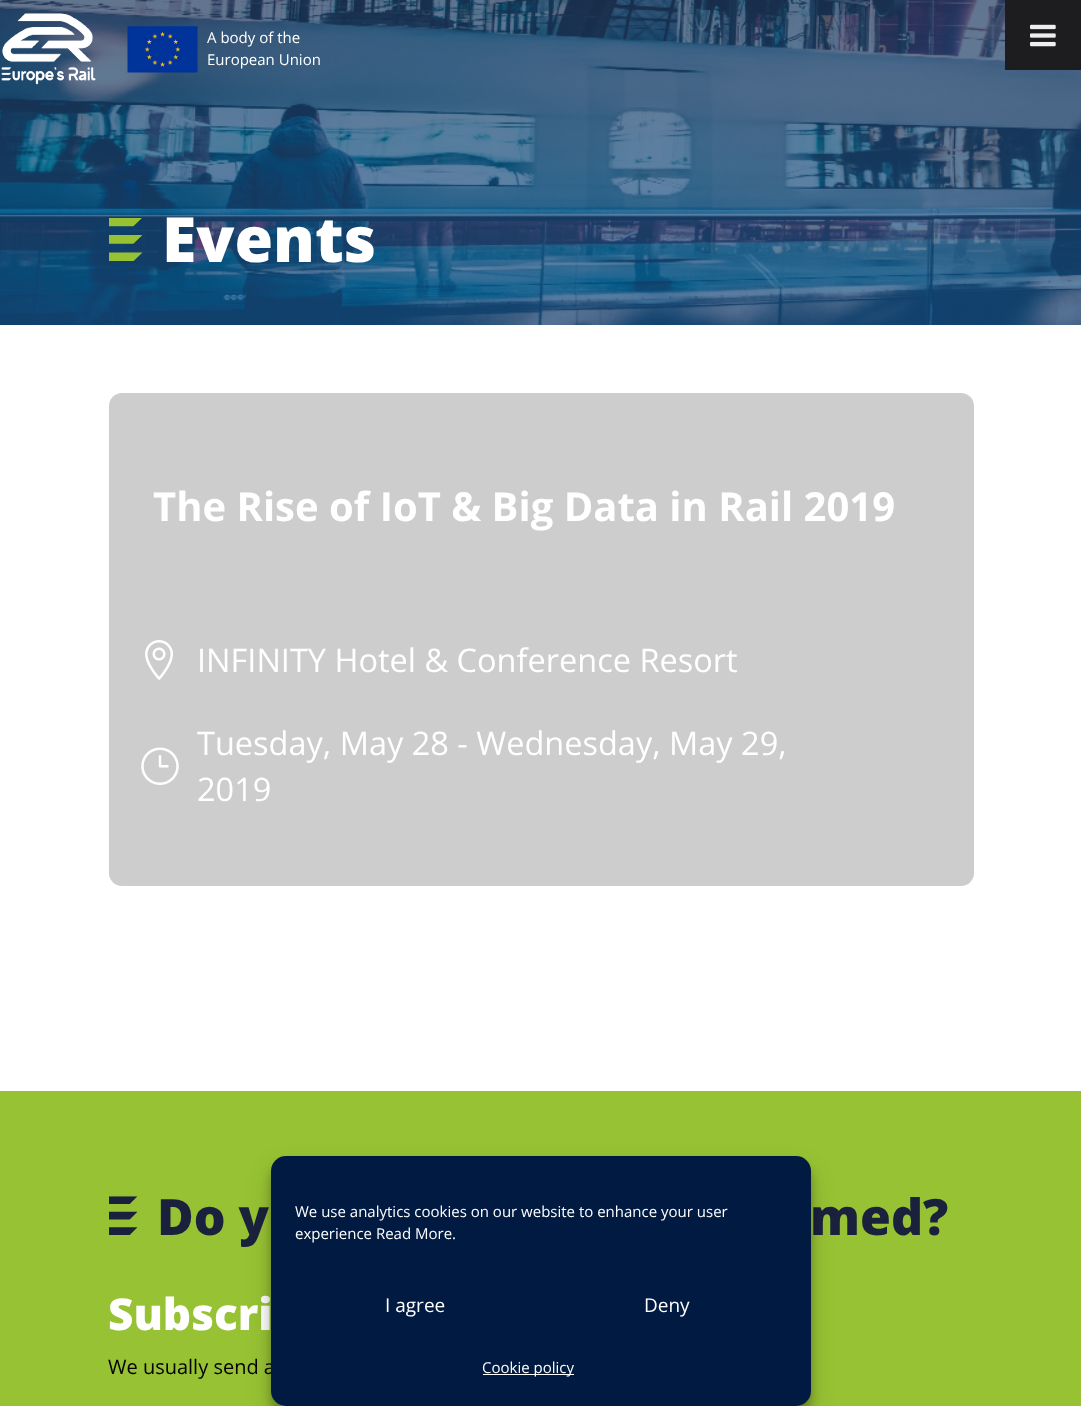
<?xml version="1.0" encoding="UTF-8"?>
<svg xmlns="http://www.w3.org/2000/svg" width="1081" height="1406">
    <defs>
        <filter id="blur1" x="-50%" y="-200%" width="200%" height="500%"><feGaussianBlur stdDeviation="4"/></filter>
        <filter id="blur2" x="-50%" y="-200%" width="200%" height="500%"><feGaussianBlur stdDeviation="12.5"/></filter>
    </defs>
    <rect width="100%" height="100%" fill="#FFFFFF"/>
    <image x="0" y="0" width="1081" height="325" href="img_01.png"/>
    <image x="1" y="13" width="95" height="72" href="img_02.png"/>
    <image x="1" y="13" width="95" height="72" href="img_03.png"/>
    <image x="127" y="26" width="71" height="47" href="img_04.png"/>
    <text font-family="Open Sans" font-size="15" fill="#FFFFFF">
        <tspan x="207" y="43">A body of the</tspan>
        <tspan x="207" y="65">European Union</tspan>
    </text>
    <image x="109" y="218" width="34" height="43" href="img_05.png"/>
    <text x="162" y="262" font-family="Open Sans" font-size="62.5" font-weight="800" fill="#FFFFFF">Events</text>
    <rect x="109" y="393" width="865" height="493" rx="13" fill="#CDCDCD"/>
    <text x="153" y="521" font-family="Open Sans" font-size="40" font-weight="700" fill="#FFFFFF">The Rise of IoT &amp; Big Data in Rail 2019</text>
    <image x="145" y="640" width="28" height="40" href="img_06.png"/>
    <text x="197" y="672" font-family="Open Sans" font-size="32.5" fill="#FFFFFF">INFINITY Hotel &amp; Conference Resort</text>
    <image x="141" y="747" width="38" height="38" href="img_07.png"/>
    <text font-family="Open Sans" font-size="32.5" fill="#FFFFFF">
        <tspan x="197" y="755">Tuesday, May 28 - Wednesday, May 29,</tspan>
        <tspan x="197" y="801">2019</tspan>
    </text>
    <rect x="0" y="1091" width="1081" height="315" fill="#97C233"/>
    <image x="109" y="1196" width="29" height="39" href="img_08.png"/>
    <text x="157" y="1235" font-family="Open Sans" font-size="50" font-weight="800" fill="#1A213D">Do y</text>
    <text x="810" y="1235" font-family="Open Sans" font-size="50" font-weight="800" fill="#1A213D">med?</text>
    <text x="108" y="1330" font-family="Open Sans" font-size="44" font-weight="800" fill="#FFFFFF">Subscri</text>
    <text x="108" y="1374" font-family="Open Sans" font-size="20" fill="#000000">We usually send a</text>
    <rect x="1005" y="0" width="76" height="70" fill="#1D1D20"/>
    <image x="1030" y="24" width="26" height="23" href="img_09.png"/>
    <rect x="271" y="1164" width="540" height="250" rx="15" fill="#000000" fill-opacity="0.23" filter="url(#blur1)"/>
    <rect x="271" y="1169" width="540" height="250" rx="15" fill="#000000" fill-opacity="0.19" filter="url(#blur2)"/>
    <rect x="271" y="1156" width="540" height="250" rx="15" fill="#011A41"/>
    <text font-family="Open Sans" font-size="15" fill="#FFFFFF">
        <tspan x="295" y="1217">We use analytics cookies on our website to enhance your user</tspan>
        <tspan x="295" y="1239">experience Read More.</tspan>
    </text>
    <text x="385" y="1312" font-family="Open Sans" font-size="19" fill="#FFFFFF">I agree</text>
    <text x="644" y="1312" font-family="Open Sans" font-size="19" fill="#FFFFFF">Deny</text>
    <rect x="483" y="1374" width="91" height="1" fill="#FFFFFF"/>
    <text x="482" y="1373" font-family="Open Sans" font-size="15" fill="#FFFFFF">Cookie policy</text>
</svg>
